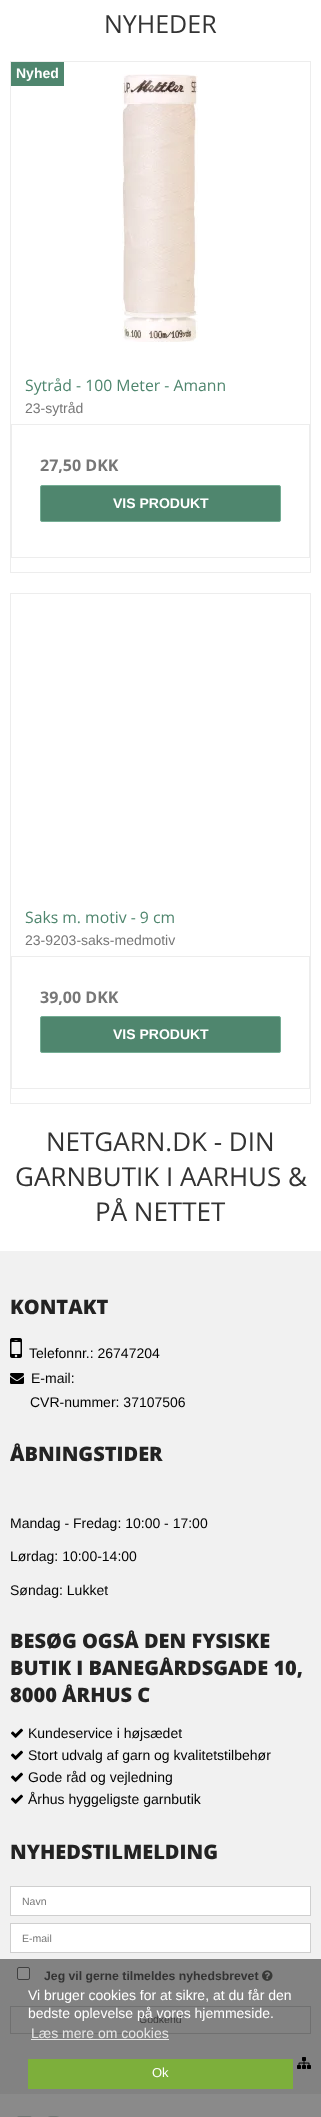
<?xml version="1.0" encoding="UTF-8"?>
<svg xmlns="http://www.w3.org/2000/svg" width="321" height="2117">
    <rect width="100%" height="100%" fill="#FFFFFF"/>
    <text x="104" y="33" font-family="Open Sans" font-size="25" fill="#333333">NYHEDER</text>
    <rect x="10.5" y="61.5" width="300" height="511" fill="none" stroke="#EDEDED"/>
    <rect x="11" y="62" width="53" height="24" fill="#4F866E"/>
    <text x="16" y="78" font-family="Liberation Sans" font-size="14" font-weight="700" fill="#FFFFFF">Nyhed</text>
    <image x="122" y="74" width="76" height="268" href="img_01.png"/>
    <text x="25" y="391" font-family="Open Sans" font-size="15.75" fill="#4F866E">Sytråd - 100 Meter - Amann</text>
    <text x="25" y="413" font-family="Liberation Sans" font-size="14" fill="#777777">23-sytråd</text>
    <rect x="11.5" y="424.5" width="298" height="133" fill="none" stroke="#EDEDED"/>
    <text x="40" y="471" font-family="Open Sans" font-size="16" font-weight="700" fill="#777777">27,50 DKK</text>
    <rect x="40.5" y="485.5" width="240" height="36" rx="1.5" fill="#4F866E" stroke="#74AD94"/>
    <text x="113" y="508" font-family="Liberation Sans" font-size="14" font-weight="700" fill="#FFFFFF">VIS PRODUKT</text>
    <rect x="10.5" y="593.5" width="300" height="510" fill="none" stroke="#EDEDED"/>
    <text x="25" y="923" font-family="Open Sans" font-size="15.75" fill="#4F866E">Saks m. motiv - 9 cm</text>
    <text x="25" y="945" font-family="Liberation Sans" font-size="14" fill="#777777">23-9203-saks-medmotiv</text>
    <rect x="11.5" y="956.5" width="298" height="132" fill="none" stroke="#EDEDED"/>
    <text x="40" y="1003" font-family="Open Sans" font-size="16" font-weight="700" fill="#777777">39,00 DKK</text>
    <rect x="40.5" y="1016.5" width="240" height="36" rx="1.5" fill="#4F866E" stroke="#74AD94"/>
    <text x="113" y="1039" font-family="Liberation Sans" font-size="14" font-weight="700" fill="#FFFFFF">VIS PRODUKT</text>
    <text x="46" y="1151" font-family="Open Sans" font-size="26" fill="#333333">NETGARN.DK - DIN</text>
    <text x="15" y="1186" font-family="Open Sans" font-size="26" fill="#333333">GARNBUTIK I AARHUS &amp;</text>
    <text x="95" y="1221" font-family="Open Sans" font-size="26" fill="#333333">PÅ NETTET</text>
    <rect x="0" y="1251" width="321" height="708" fill="#F1F1F1"/>
    <rect x="0" y="1959" width="321" height="135" fill="#828282"/>
    <text x="10" y="1314" font-family="Open Sans" font-size="20" font-weight="800" fill="#232323">KONTAKT</text>
    <image x="10" y="1338" width="12" height="20" href="img_02.png"/>
    <text x="29" y="1358" font-family="Liberation Sans" font-size="14" fill="#000000">Telefonnr.: 26747204</text>
    <image x="10" y="1373" width="14" height="11" href="img_03.png"/>
    <text x="31" y="1383" font-family="Liberation Sans" font-size="14" fill="#000000">E-mail:</text>
    <text x="30" y="1407" font-family="Liberation Sans" font-size="14" fill="#000000">CVR-nummer: 37107506</text>
    <text x="10" y="1461" font-family="Open Sans" font-size="20" font-weight="800" fill="#232323">ÅBNINGSTIDER</text>
    <text x="10" y="1528" font-family="Liberation Sans" font-size="14" fill="#000000">Mandag - Fredag: 10:00 - 17:00</text>
    <text x="10" y="1561" font-family="Liberation Sans" font-size="14" fill="#000000">Lørdag: 10:00-14:00</text>
    <text x="10" y="1595" font-family="Liberation Sans" font-size="14" fill="#000000">Søndag: Lukket</text>
    <text font-family="Open Sans" font-size="20" font-weight="800" fill="#232323">
        <tspan x="10" y="1648">BESØG OGSÅ DEN FYSISKE</tspan>
        <tspan x="10" y="1675">BUTIK I BANEGÅRDSGADE 10,</tspan>
        <tspan x="10" y="1702">8000 ÅRHUS C</tspan>
    </text>
    <image x="11" y="1728" width="12" height="10" href="img_04.png"/>
    <text x="28" y="1738" font-family="Liberation Sans" font-size="14" fill="#000000">Kundeservice i højsædet</text>
    <image x="11" y="1750" width="12" height="10" href="img_04.png"/>
    <text x="28" y="1760" font-family="Liberation Sans" font-size="14" fill="#000000">Stort udvalg af garn og kvalitetstilbehør</text>
    <image x="11" y="1772" width="12" height="10" href="img_04.png"/>
    <text x="28" y="1782" font-family="Liberation Sans" font-size="14" fill="#000000">Gode råd og vejledning</text>
    <image x="11" y="1794" width="12" height="10" href="img_04.png"/>
    <text x="28" y="1804" font-family="Liberation Sans" font-size="14" fill="#000000">Århus hyggeligste garnbutik</text>
    <text x="10" y="1859" font-family="Open Sans" font-size="20" font-weight="800" fill="#232323">NYHEDSTILMELDING</text>
    <rect x="10.5" y="1886.5" width="300" height="29" fill="#FFFFFF" stroke="#CFCFCF"/>
    <text x="22" y="1905" font-family="Liberation Sans" font-size="10.5" fill="#777777">Navn</text>
    <rect x="10.5" y="1923.5" width="300" height="29" fill="#FFFFFF" stroke="#CFCFCF"/>
    <text x="22" y="1942" font-family="Liberation Sans" font-size="10.5" fill="#777777">E-mail</text>
    <rect x="17.5" y="1967.5" width="12" height="12" rx="1.5" fill="#8A8A8A" stroke="#404040"/>
    <text x="44" y="1980" font-family="Liberation Sans" font-size="12.25" font-weight="700" fill="#333333">Jeg vil gerne tilmeldes nyhedsbrevet</text>
    <image x="262" y="1970" width="11" height="11" href="img_05.png"/>
    <rect x="10.5" y="2006.5" width="300" height="27" fill="none" stroke="#707070"/>
    <text x="139" y="2023" font-family="Liberation Sans" font-size="10.5" fill="#3A3A3A">Godkend</text>
    <image x="297" y="2057" width="14" height="12" href="img_06.png"/>
    <rect x="0" y="2094" width="321" height="23" fill="#8A8A8A"/>
    <image x="17" y="2116" width="15" height="1" href="img_07.png"/>
    <image x="48" y="2116" width="11" height="1" href="img_08.png"/>
    <text font-family="Liberation Sans" font-size="14" fill="#FFFFFF">
        <tspan x="28" y="2000">Vi bruger cookies for at sikre, at du får den</tspan>
        <tspan x="28" y="2018">bedste oplevelse på vores hjemmeside.</tspan>
    </text>
    <text x="31" y="2038" font-family="Liberation Sans" font-size="14" fill="#E6E6E6">Læs mere om cookies</text>
    <rect x="31" y="2039" width="138" height="1" fill="#E6E6E6"/>
    <rect x="28" y="2059" width="265" height="30" fill="#7DAF3B"/>
    <text x="152" y="2077" font-family="Liberation Sans" font-size="13" fill="#FFFFFF">Ok</text>
</svg>
